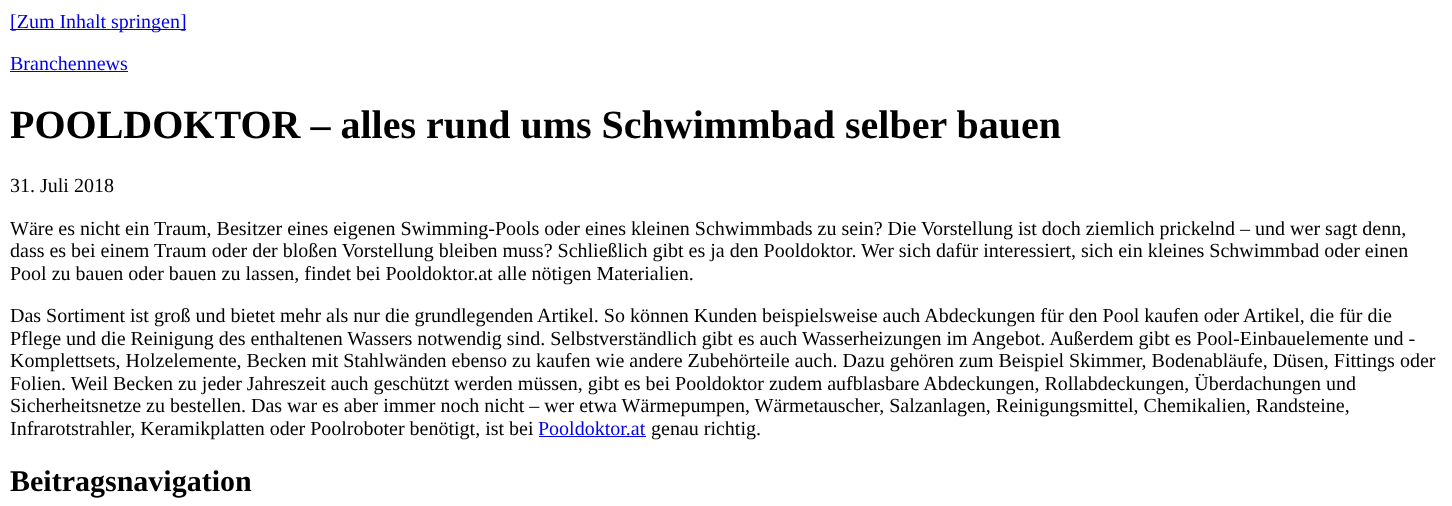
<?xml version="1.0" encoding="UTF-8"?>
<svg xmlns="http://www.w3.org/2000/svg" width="1452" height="506">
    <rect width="100%" height="100%" fill="#FFFFFF"/>
    <rect x="10" y="29" width="176" height="1" fill="#0000EE"/>
    <text x="10" y="28" font-family="Liberation Serif" font-size="20" fill="#0000EE">[Zum Inhalt springen]</text>
    <text x="10" y="70" font-family="Liberation Serif" font-size="20" fill="#0000EE">Branchennews</text>
    <rect x="10" y="71" width="118" height="1" fill="#0000EE"/>
    <text x="10" y="138" font-family="Liberation Serif" font-size="40" font-weight="700" fill="#000000">POOLDOKTOR – alles rund ums Schwimmbad selber bauen</text>
    <text x="10" y="192" font-family="Liberation Serif" font-size="20" fill="#000000">31. Juli 2018</text>
    <text font-family="Liberation Serif" font-size="20" fill="#000000">
        <tspan x="10" y="235">Wäre es nicht ein Traum, Besitzer eines eigenen Swimming-Pools oder eines kleinen Schwimmbads zu sein? Die Vorstellung ist doch ziemlich prickelnd – und wer sagt denn,</tspan>
        <tspan x="10" y="257">dass es bei einem Traum oder der bloßen Vorstellung bleiben muss? Schließlich gibt es ja den Pooldoktor. Wer sich dafür interessiert, sich ein kleines Schwimmbad oder einen</tspan>
        <tspan x="10" y="280">Pool zu bauen oder bauen zu lassen, findet bei Pooldoktor.at alle nötigen Materialien.</tspan>
    </text>
    <text font-family="Liberation Serif" font-size="20" fill="#000000">
        <tspan x="10" y="322">Das Sortiment ist groß und bietet mehr als nur die grundlegenden Artikel. So können Kunden beispielsweise auch Abdeckungen für den Pool kaufen oder Artikel, die für die</tspan>
        <tspan x="10" y="345">Pflege und die Reinigung des enthaltenen Wassers notwendig sind. Selbstverständlich gibt es auch Wasserheizungen im Angebot. Außerdem gibt es Pool-Einbauelemente und -</tspan>
        <tspan x="10" y="367">Komplettsets, Holzelemente, Becken mit Stahlwänden ebenso zu kaufen wie andere Zubehörteile auch. Dazu gehören zum Beispiel Skimmer, Bodenabläufe, Düsen, Fittings oder</tspan>
        <tspan x="10" y="390">Folien. Weil Becken zu jeder Jahreszeit auch geschützt werden müssen, gibt es bei Pooldoktor zudem aufblasbare Abdeckungen, Rollabdeckungen, Überdachungen und</tspan>
        <tspan x="10" y="412">Sicherheitsnetze zu bestellen. Das war es aber immer noch nicht – wer etwa Wärmepumpen, Wärmetauscher, Salzanlagen, Reinigungsmittel, Chemikalien, Randsteine,</tspan>
        <tspan x="10" y="435">Infrarotstrahler, Keramikplatten oder Poolroboter benötigt, ist bei</tspan>
    </text>
    <text x="538" y="435" font-family="Liberation Serif" font-size="20" fill="#0000EE">Pooldoktor.at</text>
    <rect x="539" y="436" width="107" height="1" fill="#0000EE"/>
    <text x="651" y="435" font-family="Liberation Serif" font-size="20" fill="#000000">genau richtig.</text>
    <text x="10" y="491" font-family="Liberation Serif" font-size="30" font-weight="700" fill="#000000">Beitragsnavigation</text>
</svg>
